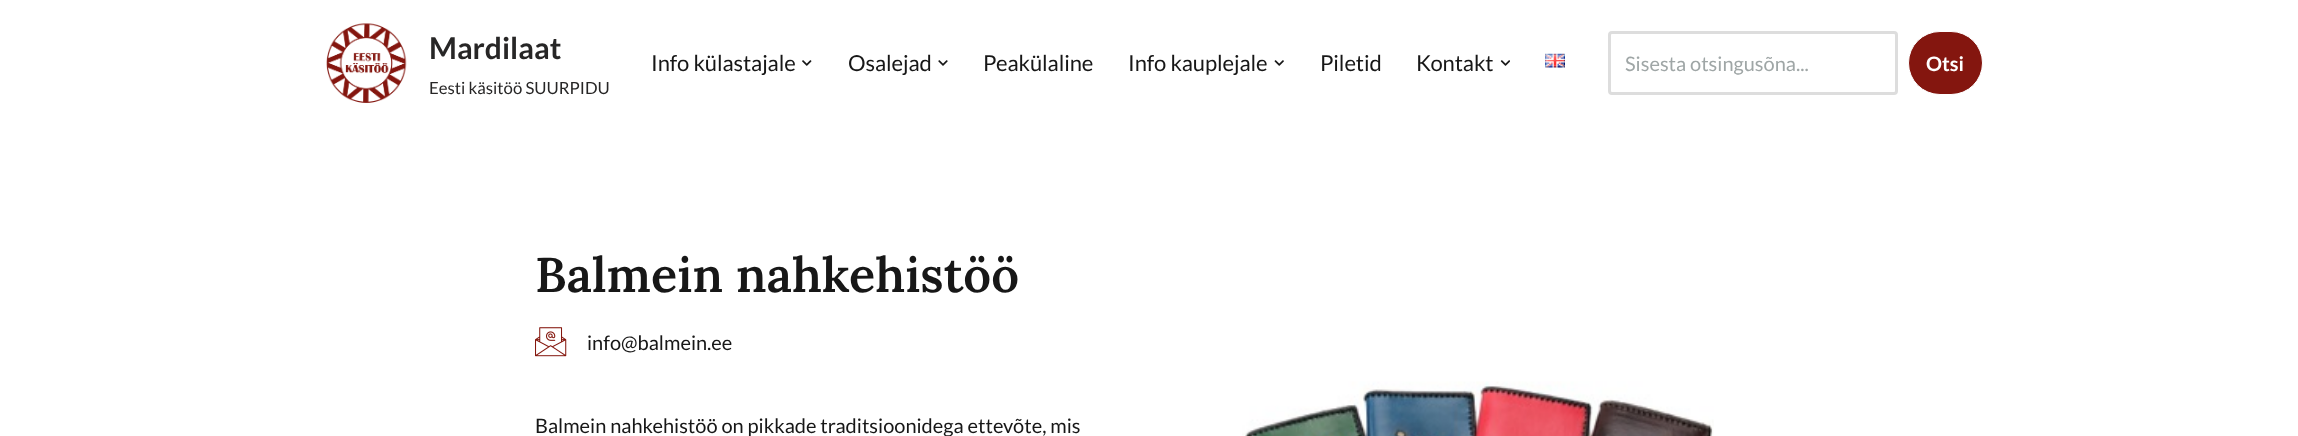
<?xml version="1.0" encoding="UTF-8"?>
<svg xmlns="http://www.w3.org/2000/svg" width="2298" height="436">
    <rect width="100%" height="100%" fill="#FFFFFF"/>
    <image x="326" y="23" width="81" height="80" href="img_01.png"/>
    <text x="429" y="59" font-family="Lato" font-size="30" font-weight="700" fill="#272626">Mardilaat</text>
    <text x="429" y="94" font-family="Lato" font-size="16.75" fill="#272626">Eesti käsitöö SUURPIDU</text>
    <text x="651" y="71" font-family="Lato" font-size="22" letter-spacing="-0.1" fill="#171717">Info külastajale</text>
    <image x="802" y="60" width="10" height="6" href="img_02.png"/>
    <text x="848" y="71" font-family="Lato" font-size="22" letter-spacing="-0.1" fill="#171717">Osalejad</text>
    <image x="938" y="60" width="10" height="6" href="img_03.png"/>
    <text x="983" y="71" font-family="Lato" font-size="22" letter-spacing="-0.1" fill="#171717">Peakülaline</text>
    <text x="1128" y="71" font-family="Lato" font-size="22" letter-spacing="-0.1" fill="#171717">Info kauplejale</text>
    <image x="1274" y="60" width="10" height="6" href="img_04.png"/>
    <text x="1320" y="71" font-family="Lato" font-size="22" letter-spacing="-0.1" fill="#171717">Piletid</text>
    <text x="1416" y="71" font-family="Lato" font-size="22" letter-spacing="-0.1" fill="#171717">Kontakt</text>
    <image x="1500" y="60" width="10" height="6" href="img_05.png"/>
    <image x="1545" y="53" width="20" height="15" href="img_06.png"/>
    <rect x="1609.5" y="32.5" width="287" height="61" rx="2.5" fill="none" stroke="#DDDDDD" stroke-width="3"/>
    <text x="1625" y="71" font-family="Lato" font-size="20" fill="#9FA6A6">Sisesta otsingusõna...</text>
    <rect x="1908.5" y="31.5" width="74" height="63" rx="31.5" fill="#84160F" stroke="#FFFFFF"/>
    <text x="1926" y="71" font-family="Lato" font-size="20" font-weight="700" fill="#FFFFFF">Otsi</text>
    <text x="535" y="292" font-family="Lora" font-size="48.75" font-weight="600" fill="#171717">Balmein nahkehistöö</text>
    <image x="535" y="327" width="32" height="30" href="img_07.png"/>
    <text x="587" y="350" font-family="Lato" font-size="20" fill="#171717">info@balmein.ee</text>
    <text x="535" y="433" font-family="Lato" font-size="20" fill="#171717">Balmein nahkehistöö on pikkade traditsioonidega ettevõte, mis</text>
    <image x="1242" y="381" width="472" height="55" href="img_08.png"/>
</svg>
